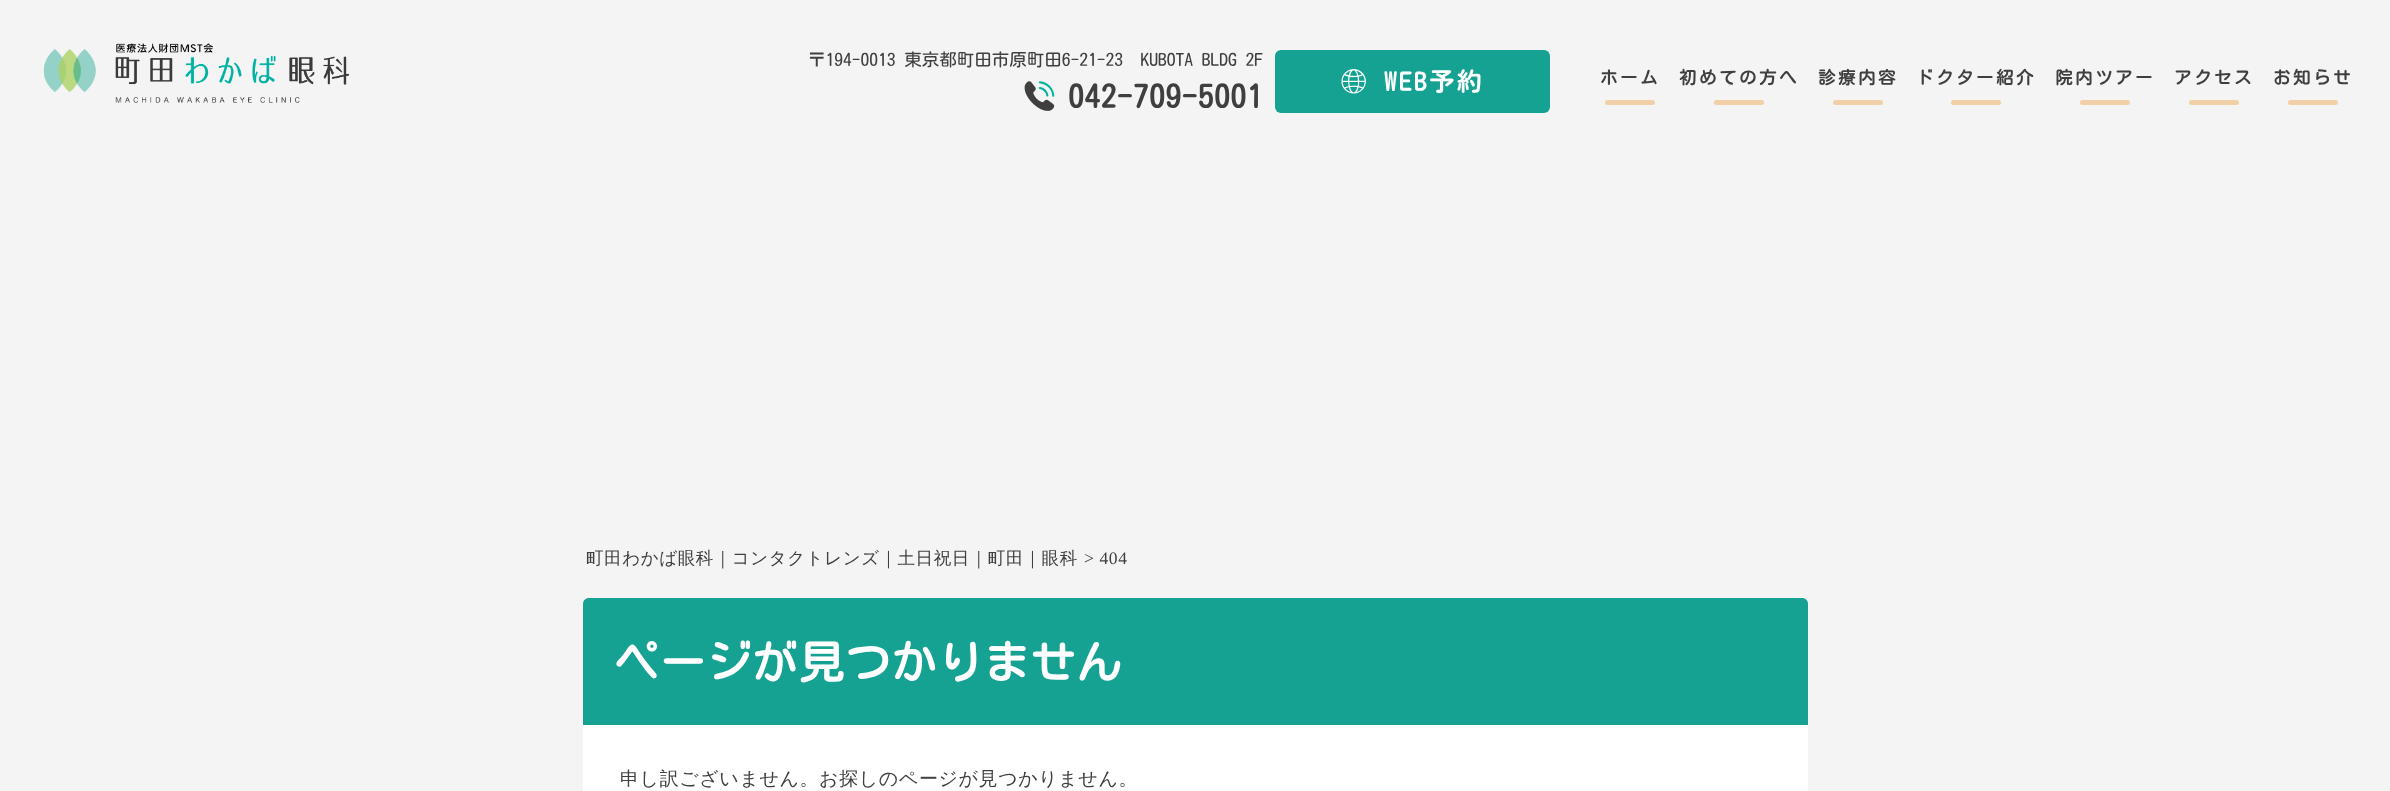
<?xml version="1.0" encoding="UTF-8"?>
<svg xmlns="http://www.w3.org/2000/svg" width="2390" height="791">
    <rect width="100%" height="100%" fill="#F4F4F4"/>
    <image x="43" y="43" width="307" height="60" href="img_01.png"/>
    <text x="808" y="66" font-family="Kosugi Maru" font-size="17.5" fill="#3F3F3F">〒194-0013 東京都町田市原町田6-21-23　KUBOTA BLDG 2F</text>
    <image x="1024" y="81" width="31" height="30" href="img_02.png"/>
    <text x="1068" y="108" font-family="Kosugi Maru" font-size="31.25" font-weight="700" letter-spacing="0.6" fill="#3F3F3F">042-709-5001</text>
    <rect x="1275" y="50" width="275" height="63" rx="6" fill="#16A292"/>
    <image x="1341" y="69" width="25" height="25" href="img_03.png"/>
    <text x="1384" y="91" font-family="Kosugi Maru" font-size="25" font-weight="700" letter-spacing="2.5" fill="#FFFFFF">WEB予約</text>
    <text x="1600" y="84" font-family="Kosugi Maru" font-size="17.5" font-weight="700" letter-spacing="2.5" fill="#3F3F3F">ホーム</text>
    <rect x="1605" y="100" width="50" height="5" rx="2.5" fill="#F1D0A7"/>
    <text x="1679" y="84" font-family="Kosugi Maru" font-size="17.5" font-weight="700" letter-spacing="2.5" fill="#3F3F3F">初めての方へ</text>
    <rect x="1714" y="100" width="50" height="5" rx="2.5" fill="#F1D0A7"/>
    <text x="1818" y="84" font-family="Kosugi Maru" font-size="17.5" font-weight="700" letter-spacing="2.5" fill="#3F3F3F">診療内容</text>
    <rect x="1833" y="100" width="50" height="5" rx="2.5" fill="#F1D0A7"/>
    <text x="1916" y="84" font-family="Kosugi Maru" font-size="17.5" font-weight="700" letter-spacing="2.5" fill="#3F3F3F">ドクター紹介</text>
    <rect x="1951" y="100" width="50" height="5" rx="2.5" fill="#F1D0A7"/>
    <text x="2055" y="84" font-family="Kosugi Maru" font-size="17.5" font-weight="700" letter-spacing="2.5" fill="#3F3F3F">院内ツアー</text>
    <rect x="2080" y="100" width="50" height="5" rx="2.5" fill="#F1D0A7"/>
    <text x="2174" y="84" font-family="Kosugi Maru" font-size="17.5" font-weight="700" letter-spacing="2.5" fill="#3F3F3F">アクセス</text>
    <rect x="2189" y="100" width="50" height="5" rx="2.5" fill="#F1D0A7"/>
    <text x="2273" y="84" font-family="Kosugi Maru" font-size="17.5" font-weight="700" letter-spacing="2.5" fill="#3F3F3F">お知らせ</text>
    <rect x="2288" y="100" width="50" height="5" rx="2.5" fill="#F1D0A7"/>
    <text x="586" y="564" font-family="WenQuanYi Zen Hei" font-size="17.5" font-weight="500" letter-spacing="0.6" fill="#3F3F3F">町田わかば眼科｜コンタクトレンズ｜土日祝日｜町田｜眼科</text>
    <text x="1084" y="564" font-family="Liberation Serif" font-size="17.5" letter-spacing="0.6" fill="#3F3F3F">&gt; 404</text>
    <rect x="583" y="598" width="1225" height="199" rx="6" fill="#FFFFFF"/>
    <path d="M 589 598 H 1802 C 1805.5 598 1808 600.5 1808 604 V 725 H 583 V 604 C 583 600.5 585.5 598 589 598 Z" fill="#16A292"/>
    <text x="614" y="679" font-family="Kosugi Maru" font-size="45" font-weight="700" letter-spacing="1.25" fill="#FFFFFF">ページが見つかりません</text>
    <text x="620" y="785" font-family="WenQuanYi Zen Hei" font-size="19" font-weight="500" letter-spacing="0.6" fill="#3F3F3F">申し訳ございません。お探しのページが見つかりません。</text>
</svg>
